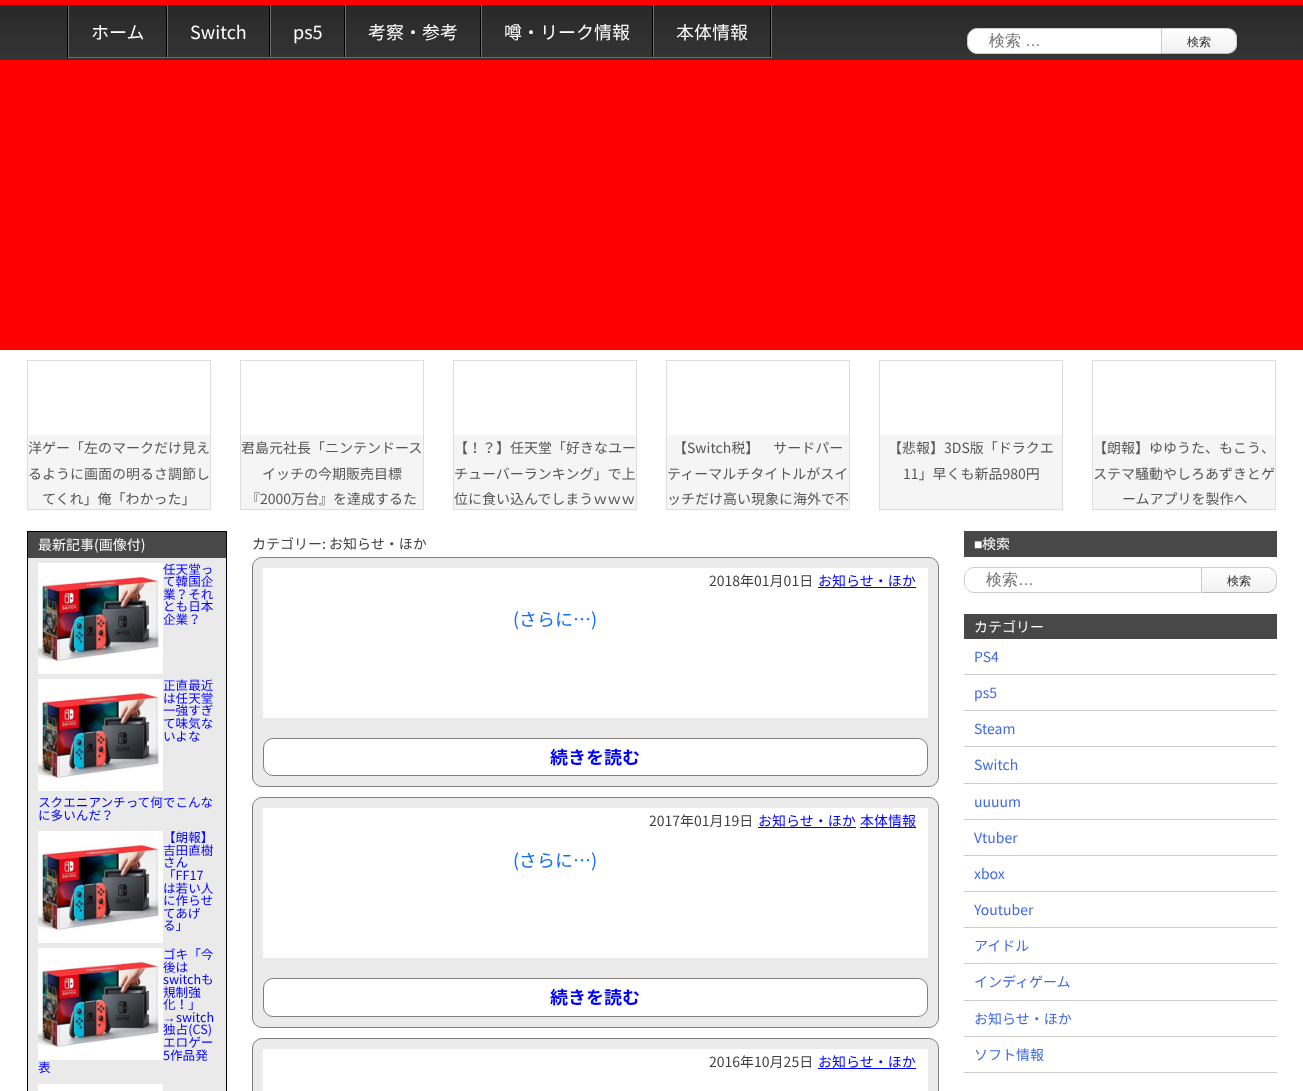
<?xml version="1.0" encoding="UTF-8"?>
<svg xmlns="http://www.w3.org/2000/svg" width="1303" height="1091">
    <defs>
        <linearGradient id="g1" gradientUnits="userSpaceOnUse" x1="652" y1="5" x2="652" y2="60"><stop offset="0" stop-color="#292929"/><stop offset="1" stop-color="#343434"/></linearGradient>
        <clipPath id="clip1"><path d="M 1162 28 H 1227 C 1232.5 28 1237 32.5 1237 38 V 44 C 1237 49.5 1232.5 54 1227 54 H 1162 Z"/></clipPath>
        <linearGradient id="g2" gradientUnits="userSpaceOnUse" x1="1199" y1="29" x2="1199" y2="53"><stop offset="0" stop-color="#FEFEFE"/><stop offset="1" stop-color="#F1F1F1"/></linearGradient>
        <clipPath id="clip2"><path d="M 1202 567 H 1267 C 1272.5 567 1277 571.5 1277 577 V 583 C 1277 588.5 1272.5 593 1267 593 H 1202 Z"/></clipPath>
        <linearGradient id="g3" gradientUnits="userSpaceOnUse" x1="1239" y1="568" x2="1239" y2="592"><stop offset="0" stop-color="#FEFEFE"/><stop offset="1" stop-color="#F1F1F1"/></linearGradient>
    </defs>
    <rect width="100%" height="100%" fill="#FFFFFF"/>
    <rect x="0" y="0" width="1303" height="350" fill="#FF0000"/>
    <rect x="0" y="5" width="1303" height="55" fill="url(#g1)"/>
    <rect x="67" y="5" width="1" height="53" fill="#000000"/>
    <rect x="68" y="5" width="704" height="1" fill="#323232"/>
    <rect x="167" y="5" width="1" height="53" fill="#6C6C6C"/>
    <rect x="68" y="57" width="100" height="1" fill="#6C6C6C"/>
    <rect x="166" y="6" width="1" height="51" fill="#000000"/>
    <rect x="68" y="6" width="1" height="51" fill="#6C6C6C"/>
    <text x="91" y="39" font-family="Noto Sans JP" font-size="18" fill="#FFFFFF">ホーム</text>
    <rect x="270" y="5" width="1" height="53" fill="#6C6C6C"/>
    <rect x="168" y="57" width="103" height="1" fill="#6C6C6C"/>
    <rect x="269" y="6" width="1" height="51" fill="#000000"/>
    <text x="190" y="39" font-family="Noto Sans JP" font-size="18" fill="#FFFFFF">Switch</text>
    <rect x="345" y="5" width="1" height="53" fill="#6C6C6C"/>
    <rect x="271" y="57" width="75" height="1" fill="#6C6C6C"/>
    <rect x="344" y="6" width="1" height="51" fill="#000000"/>
    <text x="293" y="39" font-family="Noto Sans JP" font-size="18" fill="#FFFFFF">ps5</text>
    <rect x="481" y="5" width="1" height="53" fill="#6C6C6C"/>
    <rect x="346" y="57" width="136" height="1" fill="#6C6C6C"/>
    <rect x="480" y="6" width="1" height="51" fill="#000000"/>
    <text x="368" y="39" font-family="Noto Sans JP" font-size="18" fill="#FFFFFF">考察・参考</text>
    <rect x="653" y="5" width="1" height="53" fill="#6C6C6C"/>
    <rect x="482" y="57" width="172" height="1" fill="#6C6C6C"/>
    <rect x="652" y="6" width="1" height="51" fill="#000000"/>
    <text x="504" y="39" font-family="Noto Sans JP" font-size="18" fill="#FFFFFF">噂・リーク情報</text>
    <rect x="771" y="5" width="1" height="53" fill="#6C6C6C"/>
    <rect x="654" y="57" width="118" height="1" fill="#6C6C6C"/>
    <rect x="770" y="6" width="1" height="51" fill="#000000"/>
    <text x="676" y="39" font-family="Noto Sans JP" font-size="18" fill="#FFFFFF">本体情報</text>
    <path d="M 977 28.5 H 1161.5 V 53.5 H 977 C 972 53.5 967.5 49 967.5 44 V 38 C 967.5 33 972 28.5 977 28.5 Z" fill="#FFFFFF" stroke="#CCCCCC"/>
    <text x="989" y="46" font-family="WenQuanYi Zen Hei" font-size="16" font-weight="500" fill="#757575">検索</text>
    <text x="1025" y="46" font-family="Liberation Sans" font-size="16" fill="#757575">…</text>
    <g clip-path="url(#clip1)">
        <rect x="1162" y="29" width="75" height="24" fill="url(#g2)"/>
    </g>
    <path d="M 1162 28 V 29 H 1227 C 1230 29 1232 30 1233 32 L 1234 31 C 1232 29 1230 28 1227 28 Z" fill="#CCCCCC"/>
    <path d="M 1233.5 50.5 C 1236 47.5 1236 44.5 1236 41 C 1236 37.5 1236 34.5 1233.5 31.5 L 1234 31 C 1237 33.5 1237 37.5 1237 41 C 1237 44.5 1237 48.5 1234 51 Z" fill="#CCCCCC"/>
    <path d="M 1162 53 V 54 H 1227 C 1230 54 1232 53 1234 51 L 1233 50 C 1232 52 1230 53 1227 53 Z" fill="#BBBBBB"/>
    <text x="1187" y="46" font-family="WenQuanYi Zen Hei" font-size="12" font-weight="500" fill="#313131">検索</text>
    <rect x="27.5" y="360.5" width="183" height="149" fill="none" stroke="#DDDDDD"/>
    <rect x="28" y="435" width="182" height="74" fill="#F5F5F5"/>
    <text font-family="Noto Sans JP" font-size="14" fill="#555555">
        <tspan x="28" y="453">洋ゲー「左のマークだけ見え</tspan>
        <tspan x="28" y="479">るように画面の明るさ調節し</tspan>
    </text>
    <text x="42" y="504" font-family="Noto Sans JP" font-size="14" fill="#555555">てくれ」俺「わかった」</text>
    <rect x="240.5" y="360.5" width="183" height="149" fill="none" stroke="#DDDDDD"/>
    <rect x="241" y="435" width="182" height="74" fill="#F5F5F5"/>
    <text x="241" y="453" font-family="Noto Sans JP" font-size="14" fill="#555555">君島元社長「ニンテンドース</text>
    <text x="262" y="479" font-family="Noto Sans JP" font-size="14" fill="#555555">イッチの今期販売目標</text>
    <text x="246" y="504" font-family="Noto Sans JP" font-size="14" fill="#555555">『2000万台』を達成するた</text>
    <rect x="453.5" y="360.5" width="183" height="149" fill="none" stroke="#DDDDDD"/>
    <rect x="454" y="435" width="182" height="74" fill="#F5F5F5"/>
    <text font-family="Noto Sans JP" font-size="14" fill="#555555">
        <tspan x="454" y="453">【！？】任天堂「好きなユー</tspan>
        <tspan x="454" y="479">チューバーランキング」で上</tspan>
        <tspan x="454" y="504">位に食い込んでしまうｗｗｗ</tspan>
    </text>
    <rect x="666.5" y="360.5" width="183" height="149" fill="none" stroke="#DDDDDD"/>
    <rect x="667" y="435" width="182" height="74" fill="#F5F5F5"/>
    <text x="673" y="453" font-family="Noto Sans JP" font-size="14" fill="#555555">【Switch税】　サードパー</text>
    <text font-family="Noto Sans JP" font-size="14" fill="#555555">
        <tspan x="667" y="479">ティーマルチタイトルがスイ</tspan>
        <tspan x="667" y="504">ッチだけ高い現象に海外で不</tspan>
    </text>
    <rect x="879.5" y="360.5" width="183" height="149" fill="none" stroke="#DDDDDD"/>
    <rect x="880" y="435" width="182" height="74" fill="#F5F5F5"/>
    <text x="888" y="453" font-family="Noto Sans JP" font-size="14" fill="#555555">【悲報】3DS版「ドラクエ</text>
    <text x="903" y="479" font-family="Noto Sans JP" font-size="14" fill="#555555">11」早くも新品980円</text>
    <rect x="1092.5" y="360.5" width="183" height="149" fill="none" stroke="#DDDDDD"/>
    <rect x="1093" y="435" width="182" height="74" fill="#F5F5F5"/>
    <text font-family="Noto Sans JP" font-size="14" fill="#555555">
        <tspan x="1093" y="453">【朗報】ゆゆうた、もこう、</tspan>
        <tspan x="1093" y="479">ステマ騒動やしろあずきとゲ</tspan>
    </text>
    <text x="1122" y="504" font-family="Noto Sans JP" font-size="14" fill="#555555">ームアプリを製作へ</text>
    <rect x="28" y="558" width="198" height="533" fill="#EAEAEA"/>
    <rect x="27.5" y="531.5" width="199" height="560" fill="none" stroke="#000000"/>
    <rect x="28" y="532" width="198" height="26" fill="#484848"/>
    <text x="38" y="550" font-family="Noto Sans JP" font-size="14" fill="#FFFFFF">最新記事(画像付)</text>
    <image x="38" y="563" width="125" height="111" href="img_01.png"/>
    <text font-family="Noto Sans JP" font-size="12.6" fill="#0000FF">
        <tspan x="163" y="574">任天堂っ</tspan>
        <tspan x="163" y="586">て韓国企</tspan>
        <tspan x="163" y="599">業？それ</tspan>
        <tspan x="163" y="611">とも日本</tspan>
        <tspan x="163" y="624">企業？</tspan>
    </text>
    <image x="38" y="679" width="125" height="112" href="img_02.png"/>
    <text font-family="Noto Sans JP" font-size="12.6" fill="#0000FF">
        <tspan x="163" y="690">正直最近</tspan>
        <tspan x="163" y="703">は任天堂</tspan>
        <tspan x="163" y="715">一強すぎ</tspan>
        <tspan x="163" y="728">て味気な</tspan>
        <tspan x="163" y="741">いよな</tspan>
    </text>
    <text font-family="Noto Sans JP" font-size="12.6" fill="#0000FF">
        <tspan x="38" y="807">スクエニアンチって何でこんな</tspan>
        <tspan x="38" y="820">に多いんだ？</tspan>
    </text>
    <image x="38" y="831" width="125" height="112" href="img_02.png"/>
    <text font-family="Noto Sans JP" font-size="12.6" fill="#0000FF">
        <tspan x="163" y="842">【朗報】</tspan>
        <tspan x="163" y="855">吉田直樹</tspan>
        <tspan x="163" y="867">さん</tspan>
        <tspan x="163" y="880">「FF17</tspan>
        <tspan x="163" y="893">は若い人</tspan>
        <tspan x="163" y="905">に作らせ</tspan>
        <tspan x="163" y="918">てあげ</tspan>
        <tspan x="163" y="930">る」</tspan>
    </text>
    <image x="38" y="948" width="125" height="112" href="img_02.png"/>
    <text font-family="Noto Sans JP" font-size="12.6" fill="#0000FF">
        <tspan x="163" y="959">ゴキ「今</tspan>
        <tspan x="163" y="972">後は</tspan>
        <tspan x="163" y="984">switchも</tspan>
        <tspan x="163" y="997">規制強</tspan>
        <tspan x="163" y="1009">化！」</tspan>
    </text>
    <text x="163" y="1022" font-family="Liberation Sans" font-size="12.6" fill="#0000FF">→</text>
    <text x="176" y="1022" font-family="Noto Sans JP" font-size="12.6" fill="#0000FF">switch</text>
    <text font-family="Noto Sans JP" font-size="12.6" fill="#0000FF">
        <tspan x="163" y="1034">独占(CS)</tspan>
        <tspan x="163" y="1047">エロゲー</tspan>
        <tspan x="163" y="1060">5作品発</tspan>
    </text>
    <text x="38" y="1072" font-family="Noto Sans JP" font-size="12.6" fill="#0000FF">表</text>
    <rect x="38" y="1084" width="125" height="7" fill="#FFFFFF"/>
    <text x="252" y="549" font-family="Noto Sans JP" font-size="14" fill="#404040">カテゴリー: お知らせ・ほか</text>
    <rect x="252.5" y="557.5" width="686" height="229" rx="9.5" fill="#EBEBEB" stroke="#808080"/>
    <rect x="263" y="568" width="665" height="150" fill="#FFFFFF"/>
    <text x="709" y="586" font-family="Noto Sans JP" font-size="14" fill="#404040">2018年01月01日</text>
    <text x="818" y="586" font-family="Noto Sans JP" font-size="14" fill="#0000FF">お知らせ・ほか</text>
    <rect x="818" y="587" width="98" height="1" fill="#0000FF"/>
    <text x="513" y="626" font-family="Noto Sans JP" font-size="18" fill="#116DF8">(さらに…)</text>
    <rect x="263.5" y="738.5" width="664" height="37" rx="9.5" fill="#FFFFFF" stroke="#808080"/>
    <text x="550" y="764" font-family="Noto Sans JP" font-size="18" font-weight="700" fill="#0000FF">続きを読む</text>
    <rect x="252.5" y="797.5" width="686" height="230" rx="9.5" fill="#EBEBEB" stroke="#808080"/>
    <rect x="263" y="808" width="665" height="150" fill="#FFFFFF"/>
    <text x="649" y="826" font-family="Noto Sans JP" font-size="14" fill="#404040">2017年01月19日</text>
    <text x="758" y="826" font-family="Noto Sans JP" font-size="14" fill="#0000FF">お知らせ・ほか</text>
    <rect x="758" y="827" width="98" height="1" fill="#0000FF"/>
    <rect x="860" y="827" width="56" height="1" fill="#0000FF"/>
    <text x="860" y="826" font-family="Noto Sans JP" font-size="14" fill="#0000FF">本体情報</text>
    <text x="513" y="867" font-family="Noto Sans JP" font-size="18" fill="#116DF8">(さらに…)</text>
    <rect x="263.5" y="978.5" width="664" height="38" rx="9.5" fill="#FFFFFF" stroke="#808080"/>
    <text x="550" y="1004" font-family="Noto Sans JP" font-size="18" font-weight="700" fill="#0000FF">続きを読む</text>
    <rect x="252.5" y="1038.5" width="686" height="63" rx="9.5" fill="#EBEBEB" stroke="#808080"/>
    <rect x="263" y="1049" width="665" height="42" fill="#FFFFFF"/>
    <text x="709" y="1067" font-family="Noto Sans JP" font-size="14" fill="#404040">2016年10月25日</text>
    <text x="818" y="1067" font-family="Noto Sans JP" font-size="14" fill="#0000FF">お知らせ・ほか</text>
    <rect x="818" y="1068" width="98" height="1" fill="#0000FF"/>
    <rect x="964" y="531" width="313" height="26" fill="#484848"/>
    <text x="974" y="549" font-family="Liberation Sans" font-size="14" fill="#FFFFFF">■</text>
    <text x="982" y="549" font-family="Noto Sans JP" font-size="14" fill="#FFFFFF">検索</text>
    <path d="M 974 567.5 H 1201.5 V 592.5 H 974 C 969 592.5 964.5 588 964.5 583 V 577 C 964.5 572 969 567.5 974 567.5 Z" fill="none" stroke="#CCCCCC"/>
    <text x="986" y="585" font-family="WenQuanYi Zen Hei" font-size="16" font-weight="500" fill="#757575">検索</text>
    <text x="1018" y="585" font-family="Liberation Sans" font-size="16" fill="#757575">…</text>
    <g clip-path="url(#clip2)">
        <rect x="1202" y="568" width="75" height="24" fill="url(#g3)"/>
    </g>
    <path d="M 1202 567 V 568 H 1267 C 1270 568 1272 569 1273 571 L 1274 570 C 1272 568 1270 567 1267 567 Z" fill="#CCCCCC"/>
    <path d="M 1273.5 589.5 C 1276 586.5 1276 583.5 1276 580 C 1276 576.5 1276 573.5 1273.5 570.5 L 1274 570 C 1277 572.5 1277 576.5 1277 580 C 1277 583.5 1277 587.5 1274 590 Z" fill="#CCCCCC"/>
    <path d="M 1202 592 V 593 H 1267 C 1270 593 1272 592 1274 590 L 1273 589 C 1272 591 1270 592 1267 592 Z" fill="#BBBBBB"/>
    <text x="1227" y="585" font-family="WenQuanYi Zen Hei" font-size="12" font-weight="500" fill="#313131">検索</text>
    <rect x="964" y="614" width="313" height="25" fill="#484848"/>
    <text x="974" y="632" font-family="Noto Sans JP" font-size="14" fill="#FFFFFF">カテゴリー</text>
    <rect x="964" y="674" width="313" height="1" fill="#CCCCCC"/>
    <text x="974" y="662" font-family="Noto Sans JP" font-size="14" fill="#4169E1">PS4</text>
    <rect x="964" y="710" width="313" height="1" fill="#CCCCCC"/>
    <text x="974" y="698" font-family="Noto Sans JP" font-size="14" fill="#4169E1">ps5</text>
    <rect x="964" y="746" width="313" height="1" fill="#CCCCCC"/>
    <text x="974" y="734" font-family="Noto Sans JP" font-size="14" fill="#4169E1">Steam</text>
    <rect x="964" y="783" width="313" height="1" fill="#CCCCCC"/>
    <text x="974" y="770" font-family="Noto Sans JP" font-size="14" fill="#4169E1">Switch</text>
    <rect x="964" y="819" width="313" height="1" fill="#CCCCCC"/>
    <text x="974" y="807" font-family="Noto Sans JP" font-size="14" fill="#4169E1">uuuum</text>
    <rect x="964" y="855" width="313" height="1" fill="#CCCCCC"/>
    <text x="974" y="843" font-family="Noto Sans JP" font-size="14" fill="#4169E1">Vtuber</text>
    <rect x="964" y="891" width="313" height="1" fill="#CCCCCC"/>
    <text x="974" y="879" font-family="Noto Sans JP" font-size="14" fill="#4169E1">xbox</text>
    <rect x="964" y="927" width="313" height="1" fill="#CCCCCC"/>
    <text x="974" y="915" font-family="Noto Sans JP" font-size="14" fill="#4169E1">Youtuber</text>
    <rect x="964" y="963" width="313" height="1" fill="#CCCCCC"/>
    <text x="974" y="951" font-family="Noto Sans JP" font-size="14" fill="#4169E1">アイドル</text>
    <rect x="964" y="1000" width="313" height="1" fill="#CCCCCC"/>
    <text x="974" y="987" font-family="Noto Sans JP" font-size="14" fill="#4169E1">インディゲーム</text>
    <rect x="964" y="1036" width="313" height="1" fill="#CCCCCC"/>
    <text x="974" y="1024" font-family="Noto Sans JP" font-size="14" fill="#4169E1">お知らせ・ほか</text>
    <rect x="964" y="1072" width="313" height="1" fill="#CCCCCC"/>
    <text x="974" y="1060" font-family="Noto Sans JP" font-size="14" fill="#4169E1">ソフト情報</text>
</svg>
